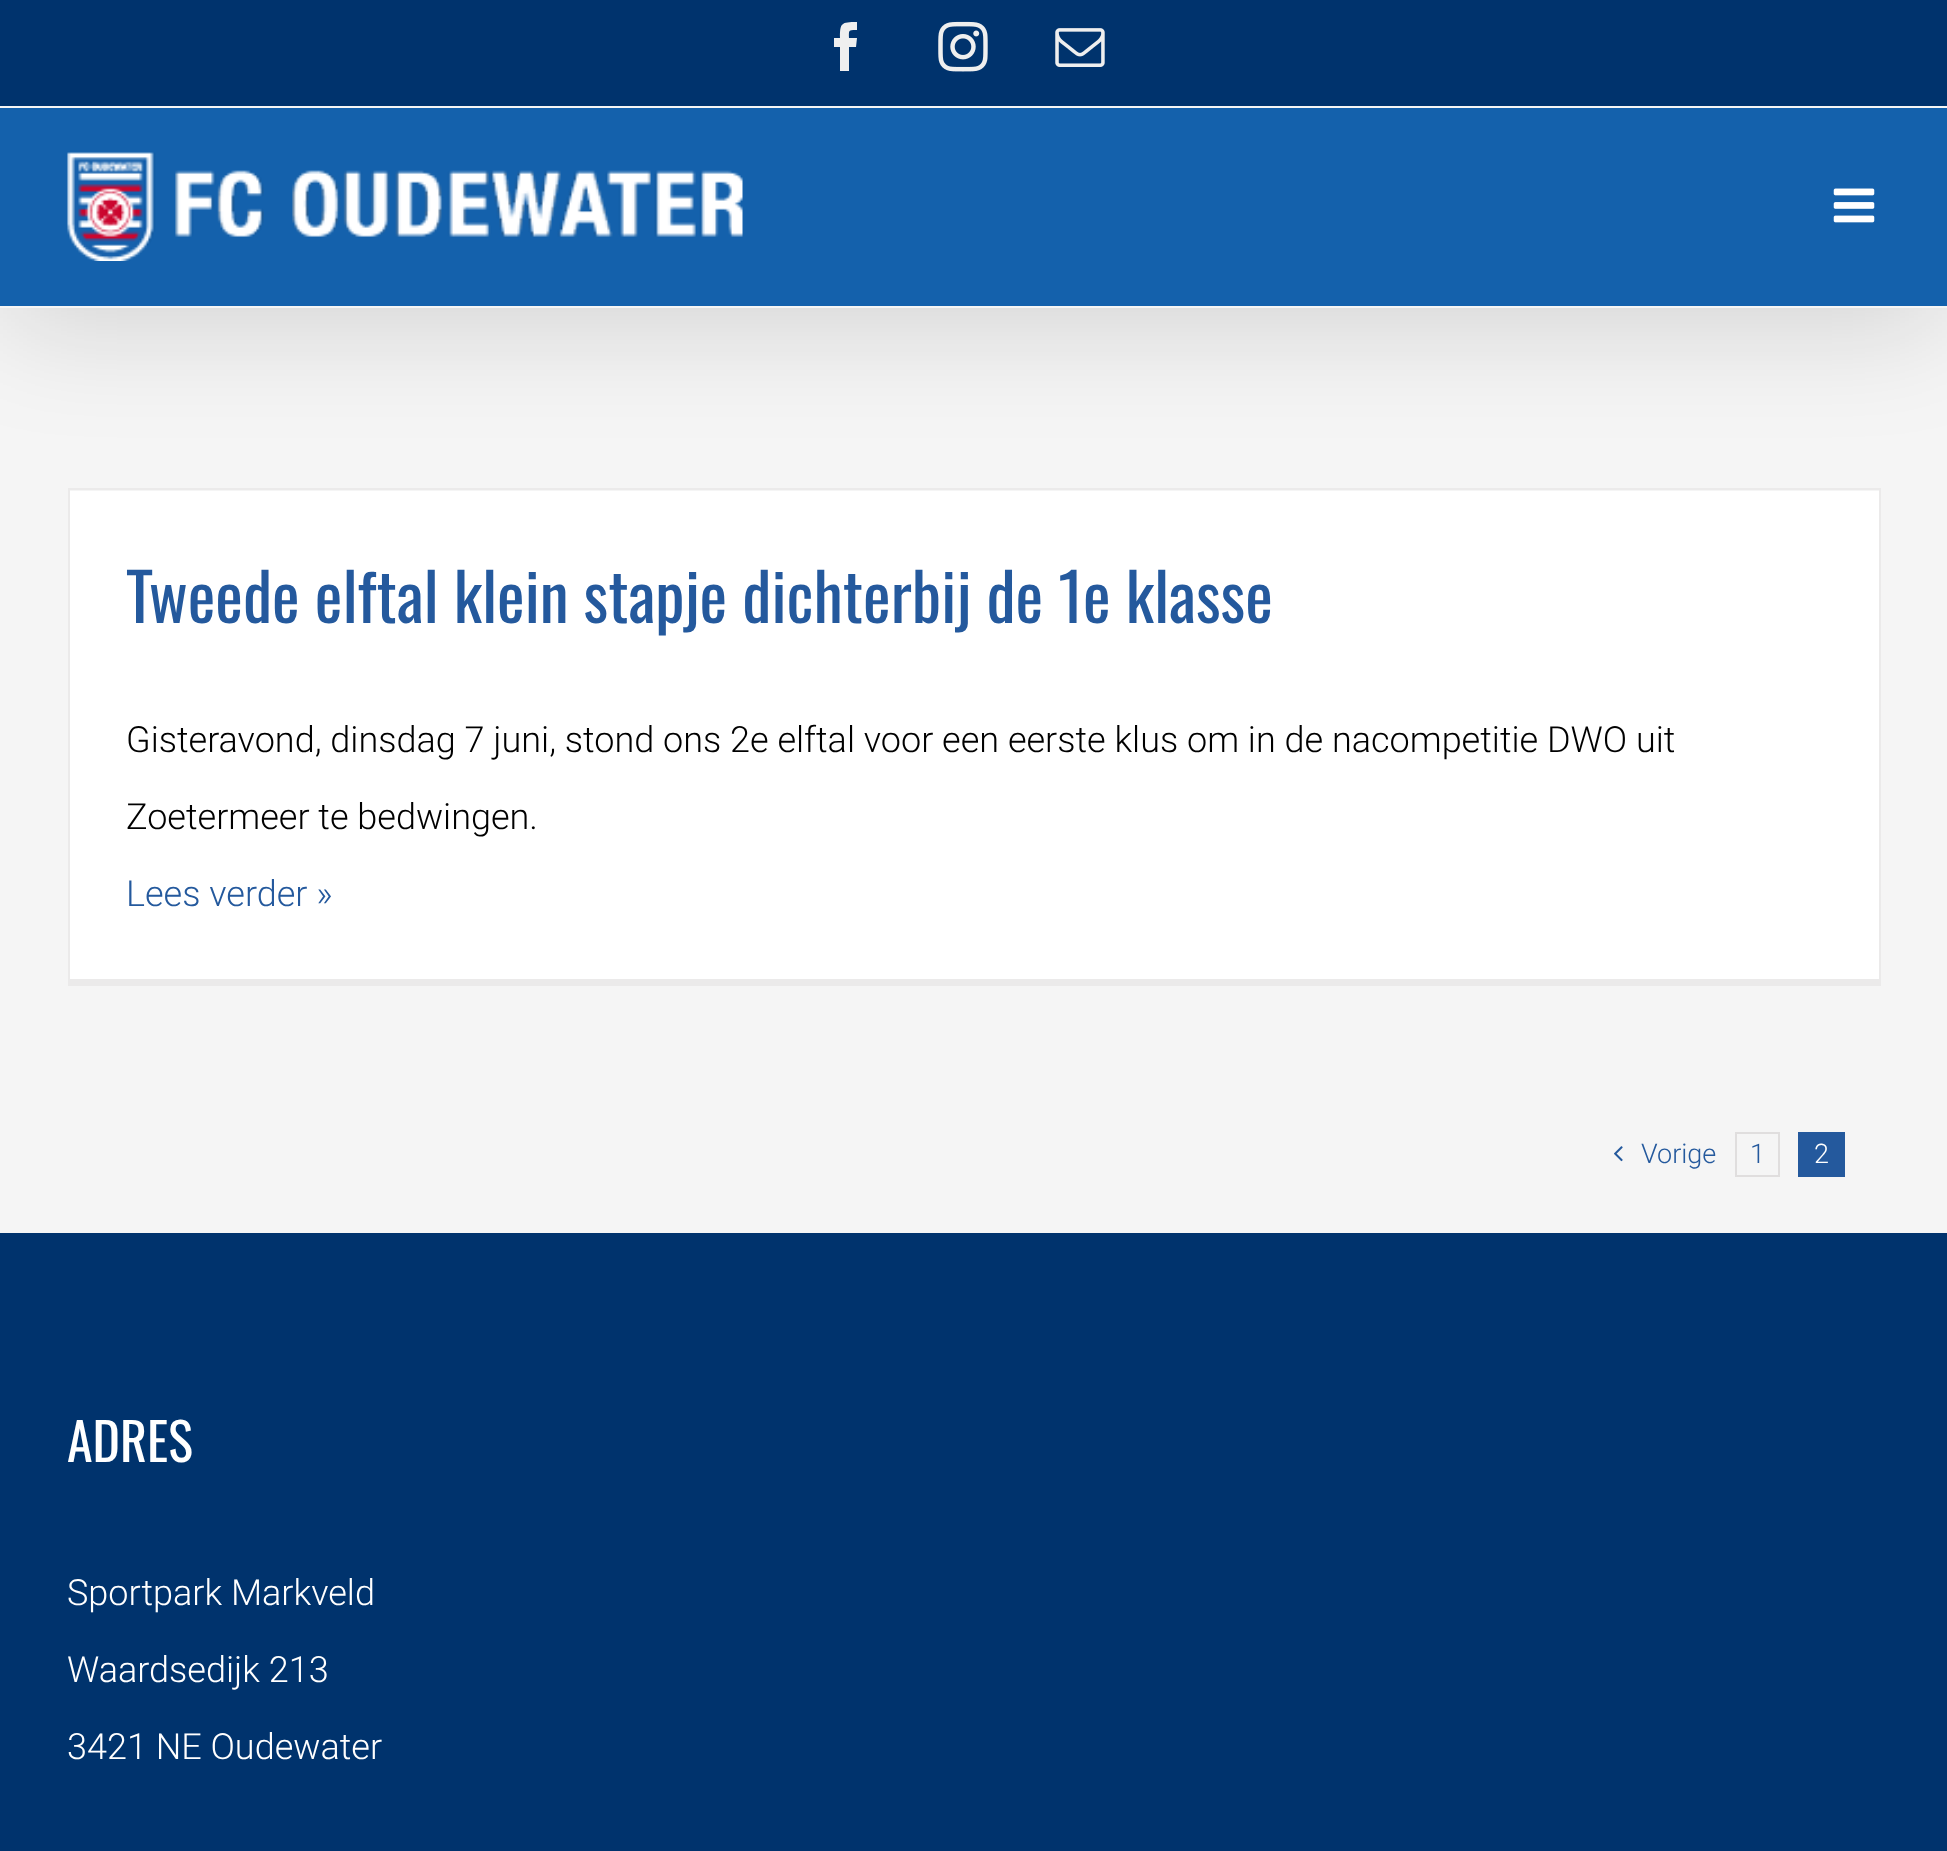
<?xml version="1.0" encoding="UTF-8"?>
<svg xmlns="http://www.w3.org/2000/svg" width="1947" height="1851">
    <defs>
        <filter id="blur1" x="-50%" y="-200%" width="200%" height="500%"><feGaussianBlur stdDeviation="56"/></filter>
    </defs>
    <rect width="100%" height="100%" fill="#F5F5F5"/>
    <rect x="70" y="491" width="1809" height="488" fill="#FFFFFF"/>
    <rect x="68" y="488" width="1813" height="2" fill="#EBEAEA"/>
    <rect x="1879" y="488" width="2" height="498" fill="#EBEAEA"/>
    <rect x="68" y="979" width="1813" height="7" fill="#EBEAEA"/>
    <rect x="68" y="488" width="2" height="498" fill="#EBEAEA"/>
    <rect x="5" y="27" width="1939" height="299" fill="#000000" fill-opacity="0.14" filter="url(#blur1)"/>
    <rect x="0" y="0" width="1947" height="106" fill="#00336D"/>
    <rect x="0" y="106" width="1947" height="2" fill="#F5F5F5"/>
    <path d="M 849 71 H 840 V 47 H 834 V 38 H 840 C 840 23 841 22 857 22 V 30 C 848 30 849 30 849 38 H 857 L 856 47 H 849 Z" fill="#EFEFEF"/>
    <image x="938" y="21" width="50" height="51" href="img_01.png"/>
    <image x="1055" y="28" width="50" height="39" href="img_02.png"/>
    <rect x="0" y="108" width="1947" height="198" fill="#1461AC"/>
    <rect x="0" y="306" width="1947" height="2" fill="#F5F5F5"/>
    <image x="67" y="152" width="676" height="109" href="img_03.png"/>
    <image x="1833" y="188" width="42" height="35" href="img_04.png"/>
    <text x="126" y="623" font-family="Oswald" font-size="65.75" fill="#24599D">Tweede elftal klein stapje dichterbij de 1e klasse</text>
    <text x="126" y="752" font-family="Roboto" font-size="36" font-weight="300" fill="#000000">Gisteravond, dinsdag 7 juni, stond ons 2e elftal voor een eerste klus om in de nacompetitie DWO uit</text>
    <text x="126" y="829" font-family="Roboto" font-size="36" font-weight="300" fill="#000000">Zoetermeer te bedwingen.</text>
    <text x="126" y="906" font-family="Roboto" font-size="36" font-weight="300" fill="#24599D">Lees verder »</text>
    <image x="1614" y="1146" width="9" height="16" href="img_05.png"/>
    <text x="1641" y="1163" font-family="Roboto" font-size="27" font-weight="300" fill="#24599D">Vorige</text>
    <rect x="1736" y="1133" width="43" height="43" fill="none" stroke="#E0DEDE" stroke-width="2"/>
    <text x="1750" y="1163" font-family="Roboto" font-size="27" font-weight="300" fill="#24599D">1</text>
    <rect x="1798" y="1132" width="47" height="45" fill="#24599D"/>
    <text x="1814" y="1163" font-family="Roboto" font-size="27" font-weight="300" fill="#FFFFFF">2</text>
    <rect x="0" y="1233" width="1947" height="618" fill="#00336D"/>
    <text x="67" y="1462" font-family="Oswald" font-size="52" fill="#FFFFFF">ADRES</text>
    <text x="67" y="1605" font-family="Roboto" font-size="36" font-weight="300" fill="#FFFFFF">Sportpark Markveld</text>
    <text x="67" y="1682" font-family="Roboto" font-size="36" font-weight="300" fill="#FFFFFF">Waardsedijk 213</text>
    <text x="67" y="1759" font-family="Roboto" font-size="36" font-weight="300" fill="#FFFFFF">3421 NE Oudewater</text>
</svg>
